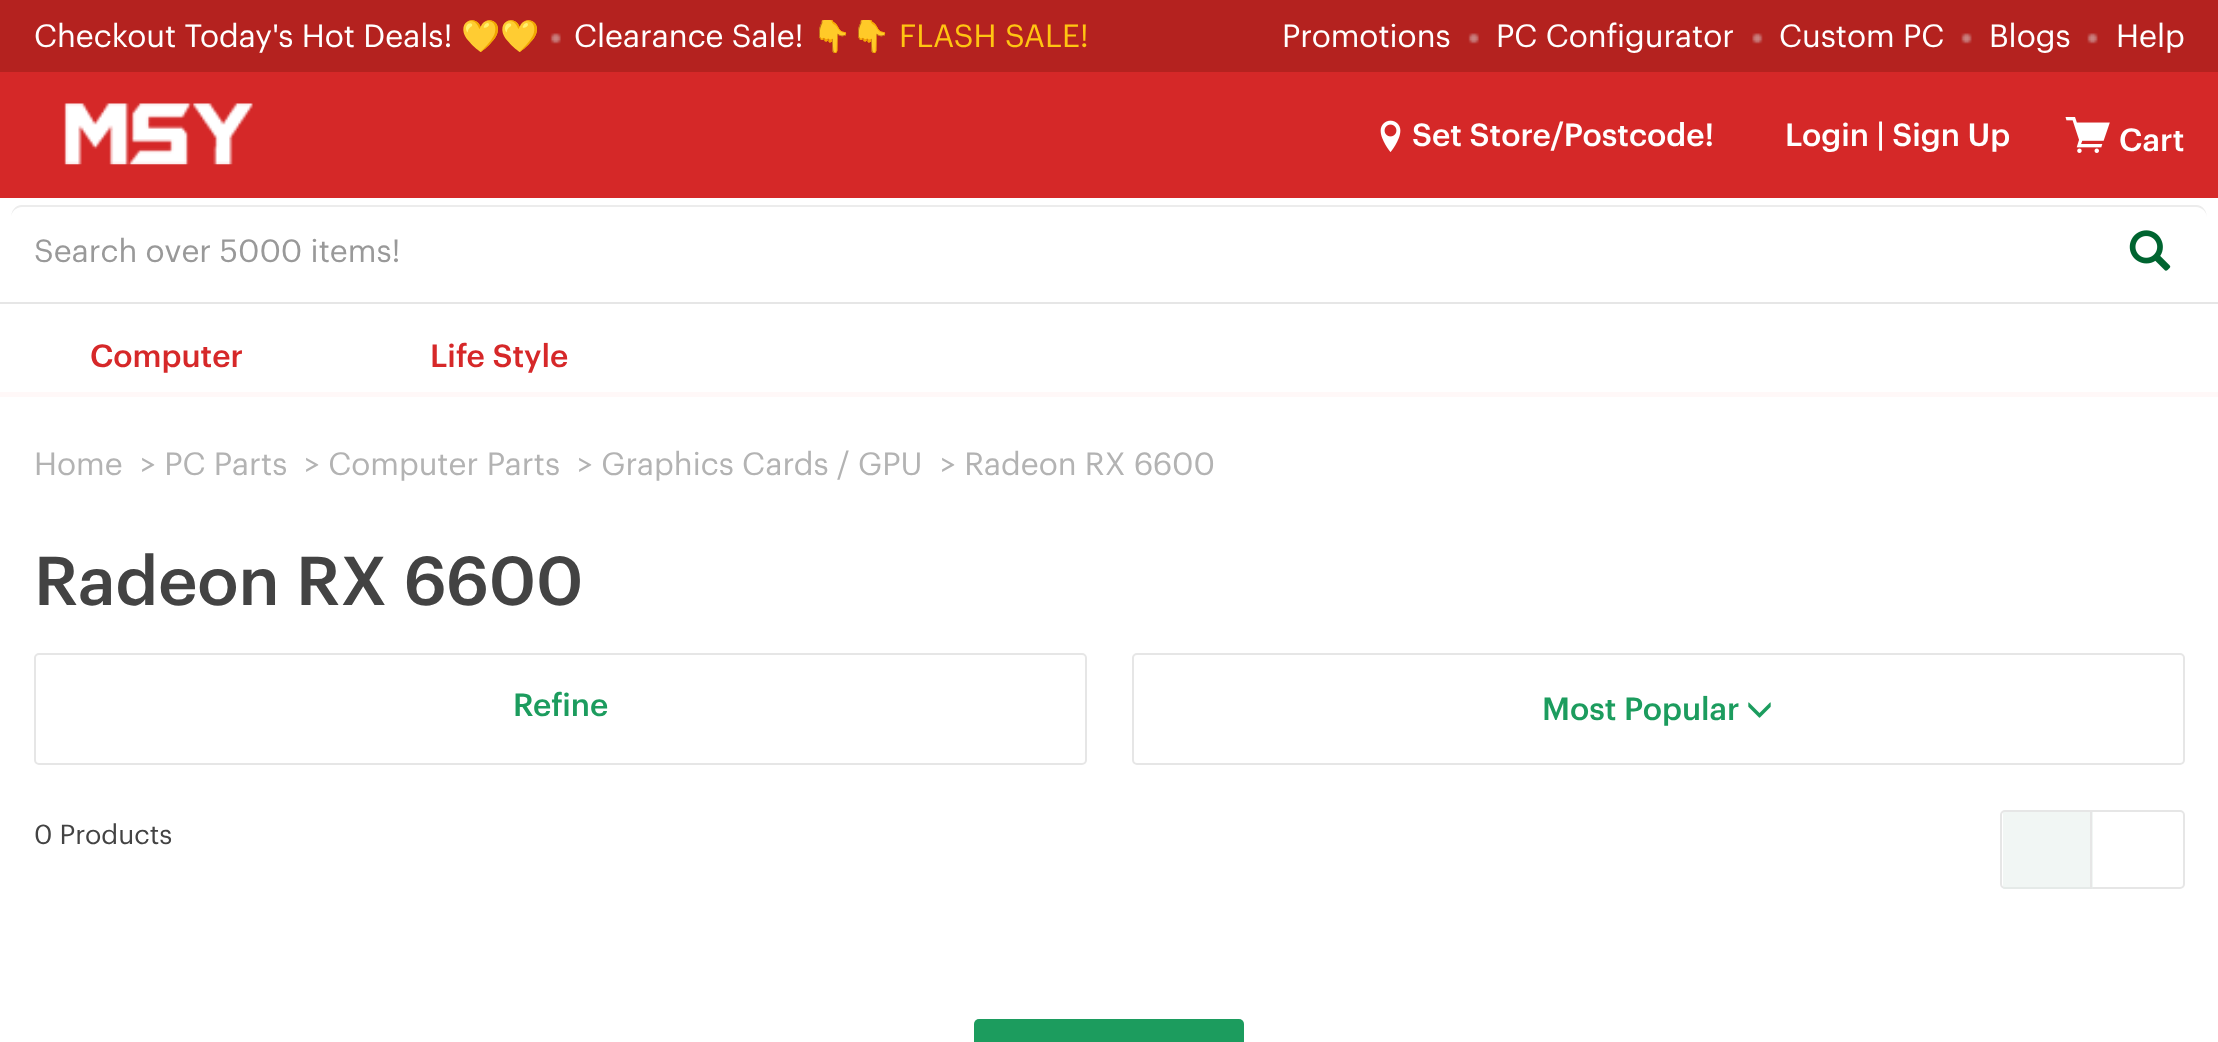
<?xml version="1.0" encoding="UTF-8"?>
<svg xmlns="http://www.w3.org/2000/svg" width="2218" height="1042">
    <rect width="100%" height="100%" fill="#FFFFFF"/>
    <rect x="0" y="0" width="2218" height="72" fill="#B4221F"/>
    <text x="34" y="47" font-family="Graphik" font-size="31.5" fill="#FFFFFF">Checkout Today's Hot Deals!</text>
    <text x="461" y="47" font-family="Noto Color Emoji" font-size="31.5" fill="#FFFFFF">💛💛</text>
    <image x="550" y="33" width="11" height="11" href="img_01.png"/>
    <text x="574" y="47" font-family="Graphik" font-size="31.5" fill="#FFFFFF">Clearance Sale!</text>
    <text x="812" y="47" font-family="Noto Color Emoji" font-size="31.5" fill="#FFFFFF">👇👇</text>
    <text x="899" y="47" font-family="Graphik" font-size="31.5" fill="#FFC412">FLASH SALE!</text>
    <text x="1282" y="47" font-family="Graphik" font-size="31.5" fill="#FFFFFF">Promotions</text>
    <image x="1468" y="33" width="11" height="11" href="img_02.png"/>
    <text x="1496" y="47" font-family="Graphik" font-size="31.5" fill="#FFFFFF">PC Configurator</text>
    <image x="1752" y="33" width="11" height="11" href="img_03.png"/>
    <text x="1779" y="47" font-family="Graphik" font-size="31.5" fill="#FFFFFF">Custom PC</text>
    <image x="1961" y="33" width="11" height="11" href="img_04.png"/>
    <text x="1989" y="47" font-family="Graphik" font-size="31.5" fill="#FFFFFF">Blogs</text>
    <image x="2087" y="33" width="11" height="11" href="img_04.png"/>
    <text x="2116" y="47" font-family="Graphik" font-size="31.5" fill="#FFFFFF">Help</text>
    <rect x="0" y="72" width="2218" height="126" fill="#D52828"/>
    <image x="64" y="103" width="189" height="62" href="img_05.png"/>
    <image x="1380" y="120" width="21" height="32" href="img_06.png"/>
    <text x="1412" y="146" font-family="Graphik" font-size="31.5" font-weight="500" fill="#FFFFFF">Set Store/Postcode!</text>
    <text x="1785" y="146" font-family="Graphik" font-size="31.5" font-weight="500" fill="#FFFFFF">Login | Sign Up</text>
    <image x="2065" y="117" width="45" height="36" href="img_07.png"/>
    <text x="2119" y="151" font-family="Graphik" font-size="31.5" font-weight="500" fill="#FFFFFF">Cart</text>
    <rect x="0" y="302" width="2218" height="2" fill="#E6E6E6"/>
    <path d="M 22 207 H 2196 C 2202 207 2207 212 2207 218 C 2207 211 2203 205 2196 205 H 22 C 15 205 11 211 11 218 C 11 212 16 207 22 207 Z" fill="#ECECEC"/>
    <text x="34" y="262" font-family="'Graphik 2'" font-size="31.5" fill="#999999">Search over 5000 items!</text>
    <image x="2129" y="230" width="42" height="41" href="img_08.png"/>
    <rect x="0" y="392" width="2218" height="5" fill="#FFF8F8"/>
    <text x="90" y="367" font-family="Graphik" font-size="31.5" font-weight="500" fill="#D62829">Computer</text>
    <text x="430" y="367" font-family="Graphik" font-size="31.5" font-weight="500" fill="#D62829">Life Style</text>
    <text x="34" y="475" font-family="Graphik" font-size="31.5" fill="#B3B3B3">Home</text>
    <text x="140" y="475" font-family="Graphik" font-size="31.5" fill="#B3B3B3">&gt; PC Parts</text>
    <text x="304" y="475" font-family="Graphik" font-size="31.5" fill="#B3B3B3">&gt; Computer Parts</text>
    <text x="577" y="475" font-family="Graphik" font-size="31.5" fill="#B3B3B3">&gt; Graphics Cards / GPU</text>
    <text x="940" y="475" font-family="Graphik" font-size="31.5" fill="#B3B3B3">&gt; Radeon RX 6600</text>
    <text x="34" y="605" font-family="Graphik" font-size="67.5" font-weight="500" fill="#434343">Radeon RX 6600</text>
    <rect x="35" y="654" width="1051" height="110" rx="4" fill="none" stroke="#E6E6E6" stroke-width="2"/>
    <text x="513" y="716" font-family="Graphik" font-size="31.5" font-weight="500" fill="#1C9C5E">Refine</text>
    <rect x="1133" y="654" width="1051" height="110" rx="4" fill="none" stroke="#E6E6E6" stroke-width="2"/>
    <text x="1542" y="720" font-family="Graphik" font-size="31.5" font-weight="500" fill="#1C9C5E">Most Popular</text>
    <image x="1748" y="702" width="23" height="16" href="img_09.png"/>
    <text x="34" y="844" font-family="Graphik" font-size="27" fill="#434343">0 Products</text>
    <rect x="2001" y="811" width="183" height="77" rx="4" fill="none" stroke="#E6E6E6" stroke-width="2"/>
    <rect x="2003" y="812" width="90" height="77" fill="#E4EDE9" fill-opacity="0.5"/>
    <rect x="2090" y="812" width="2" height="77" fill="#E6E6E6"/>
    <rect x="974" y="1019" width="270" height="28" rx="5" fill="#1C9C5E"/>
</svg>
